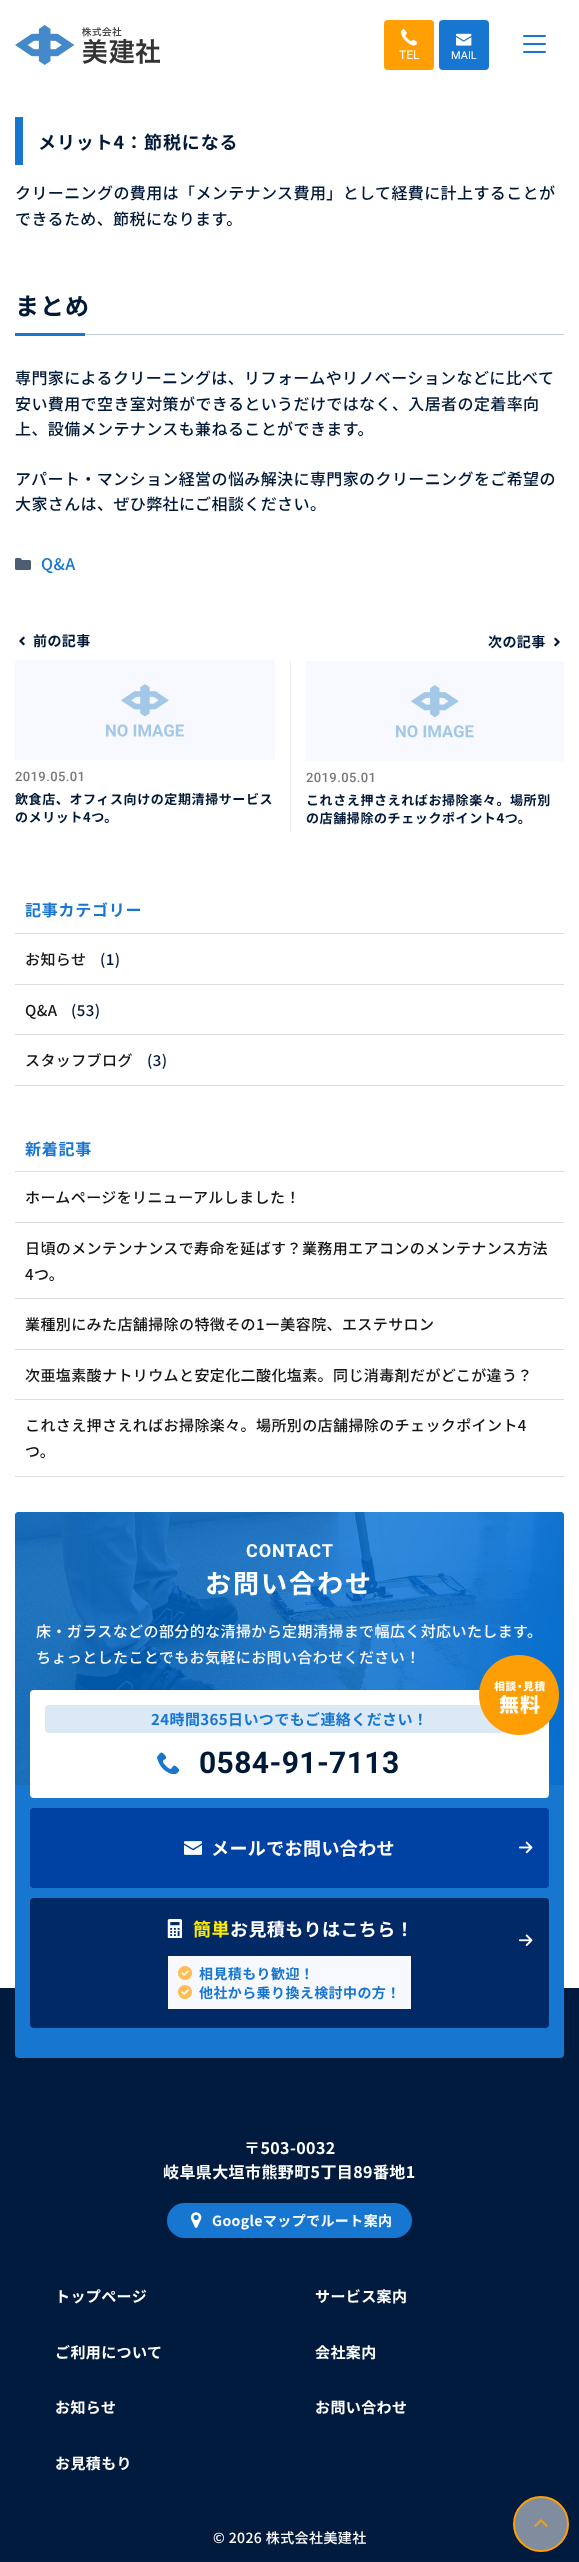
<?xml version="1.0" encoding="UTF-8"?>
<svg xmlns="http://www.w3.org/2000/svg" width="579" height="2562">
    <rect width="100%" height="100%" fill="#FFFFFF"/>
    <image x="15" y="25" width="145" height="40" href="img_01.png"/>
    <rect x="523" y="35" width="23" height="2" rx="1" fill="#1776D0"/>
    <rect x="523" y="43" width="23" height="2" rx="1" fill="#1776D0"/>
    <rect x="523" y="51" width="23" height="2" rx="1" fill="#1776D0"/>
    <rect x="384" y="20" width="50" height="50" rx="4" fill="#FF9F04"/>
    <image x="401" y="29" width="16" height="17" href="img_02.png"/>
    <text x="399" y="59" font-family="Roboto" font-size="12" fill="#FFFFFF">TEL</text>
    <rect x="439" y="20" width="50" height="50" rx="4" fill="#1776D0"/>
    <image x="456" y="33" width="16" height="13" href="img_03.png"/>
    <text x="451" y="59" font-family="Roboto" font-size="11" fill="#FFFFFF">MAIL</text>
    <rect x="15" y="117" width="8" height="48" fill="#1776D0"/>
    <text x="38" y="149" font-family="Noto Sans JP" font-size="18" font-weight="700" letter-spacing="0.9" fill="#001938">メリット4：節税になる</text>
    <text font-family="Noto Sans JP" font-size="16" font-weight="500" letter-spacing="0.4" fill="#001938">
        <tspan x="15" y="199">クリーニングの費用は「メンテナンス費用」として経費に計上することが</tspan>
        <tspan x="15" y="225">できるため、節税になります。</tspan>
    </text>
    <rect x="85" y="334" width="479" height="1" fill="#C5CFD9"/>
    <text x="15" y="315" font-family="Noto Sans JP" font-size="24" font-weight="700" letter-spacing="1" fill="#001938">まとめ</text>
    <rect x="15" y="333" width="70" height="3" fill="#1776D0"/>
    <text font-family="Noto Sans JP" font-size="16" font-weight="500" letter-spacing="0.4" fill="#001938">
        <tspan x="15" y="384">専門家によるクリーニングは、リフォームやリノベーションなどに比べて</tspan>
        <tspan x="15" y="410">安い費用で空き室対策ができるというだけではなく、入居者の定着率向</tspan>
        <tspan x="15" y="435">上、設備メンテナンスも兼ねることができます。</tspan>
    </text>
    <text font-family="Noto Sans JP" font-size="16" font-weight="500" letter-spacing="0.4" fill="#001938">
        <tspan x="15" y="485">アパート・マンション経営の悩み解決に専門家のクリーニングをご希望の</tspan>
        <tspan x="15" y="510">大家さんは、ぜひ弊社にご相談ください。</tspan>
    </text>
    <image x="15" y="558" width="16" height="12" href="img_04.png"/>
    <text x="41" y="570" font-family="Noto Sans JP" font-size="16" font-weight="500" letter-spacing="0.4" fill="#1776D0">Q&amp;A</text>
    <image x="19" y="636" width="6" height="10" href="img_05.png"/>
    <text x="33" y="646" font-family="Noto Sans JP" font-size="14" font-weight="700" letter-spacing="0.4" fill="#001938">前の記事</text>
    <rect x="15" y="660" width="260" height="100" fill="#F7F9FF"/>
    <image x="106" y="684" width="78" height="53" href="img_06.png"/>
    <text x="15" y="781" font-family="Roboto" font-size="13" font-weight="500" letter-spacing="0.4" fill="#797979">2019.05.01</text>
    <text font-family="Noto Sans JP" font-size="13" font-weight="700" letter-spacing="0.6" fill="#001938">
        <tspan x="15" y="804">飲食店、オフィス向けの定期清掃サービス</tspan>
        <tspan x="15" y="822">のメリット4つ。</tspan>
    </text>
    <text x="488" y="647" font-family="Noto Sans JP" font-size="14" font-weight="700" letter-spacing="0.4" fill="#001938">次の記事</text>
    <image x="554" y="637" width="6" height="10" href="img_07.png"/>
    <rect x="290" y="661" width="1" height="171" fill="#EBEBEB"/>
    <rect x="306" y="661" width="258" height="100" fill="#F7F9FF"/>
    <image x="396" y="685" width="78" height="53" href="img_08.png"/>
    <text x="306" y="782" font-family="Roboto" font-size="13" font-weight="500" letter-spacing="0.4" fill="#797979">2019.05.01</text>
    <text font-family="Noto Sans JP" font-size="13" font-weight="700" letter-spacing="0.6" fill="#001938">
        <tspan x="306" y="805">これさえ押さえればお掃除楽々。場所別</tspan>
        <tspan x="306" y="823">の店舗掃除のチェックポイント4つ。</tspan>
    </text>
    <rect x="15" y="933" width="549" height="1" fill="#DDDDDD"/>
    <text x="25" y="916" font-family="Noto Sans JP" font-size="16" font-weight="700" letter-spacing="0.75" fill="#1776D0">記事カテゴリー</text>
    <rect x="15" y="984" width="549" height="1" fill="#DDDDDD"/>
    <text x="25" y="965" font-family="Noto Sans JP" font-size="15" font-weight="500" letter-spacing="0.4" fill="#151515">お知らせ</text>
    <text x="100" y="965" font-family="Noto Sans JP" font-size="15" font-weight="500" letter-spacing="0.4" fill="#001938">(1)</text>
    <rect x="15" y="1034" width="549" height="1" fill="#DDDDDD"/>
    <text x="25" y="1016" font-family="Noto Sans JP" font-size="15" font-weight="500" letter-spacing="0.4" fill="#151515">Q&amp;A</text>
    <text x="71" y="1016" font-family="Noto Sans JP" font-size="15" font-weight="500" letter-spacing="0.4" fill="#001938">(53)</text>
    <rect x="15" y="1085" width="549" height="1" fill="#DDDDDD"/>
    <text x="25" y="1066" font-family="Noto Sans JP" font-size="15" font-weight="500" letter-spacing="0.4" fill="#151515">スタッフブログ</text>
    <text x="147" y="1066" font-family="Noto Sans JP" font-size="15" font-weight="500" letter-spacing="0.4" fill="#001938">(3)</text>
    <rect x="15" y="1171" width="549" height="1" fill="#DDDDDD"/>
    <text x="25" y="1155" font-family="Noto Sans JP" font-size="16" font-weight="700" letter-spacing="0.75" fill="#1776D0">新着記事</text>
    <rect x="15" y="1222" width="549" height="1" fill="#DDDDDD"/>
    <text x="25" y="1203" font-family="Noto Sans JP" font-size="15" font-weight="500" letter-spacing="0.4" fill="#151515">ホームページをリニューアルしました！</text>
    <rect x="15" y="1298" width="549" height="1" fill="#DDDDDD"/>
    <text font-family="Noto Sans JP" font-size="15" font-weight="500" letter-spacing="0.4" fill="#151515">
        <tspan x="25" y="1254">日頃のメンテンナンスで寿命を延ばす？業務用エアコンのメンテナンス方法</tspan>
        <tspan x="25" y="1280">4つ。</tspan>
    </text>
    <rect x="15" y="1349" width="549" height="1" fill="#DDDDDD"/>
    <text x="25" y="1330" font-family="Noto Sans JP" font-size="15" font-weight="500" letter-spacing="0.4" fill="#151515">業種別にみた店舗掃除の特徴その1ー美容院、エステサロン</text>
    <rect x="15" y="1399" width="549" height="1" fill="#DDDDDD"/>
    <text x="25" y="1381" font-family="Noto Sans JP" font-size="15" font-weight="500" letter-spacing="0.4" fill="#151515">次亜塩素酸ナトリウムと安定化二酸化塩素。同じ消毒剤だがどこが違う？</text>
    <rect x="15" y="1476" width="549" height="1" fill="#DDDDDD"/>
    <text font-family="Noto Sans JP" font-size="15" font-weight="500" letter-spacing="0.4" fill="#151515">
        <tspan x="25" y="1431">これさえ押さえればお掃除楽々。場所別の店舗掃除のチェックポイント4</tspan>
        <tspan x="25" y="1457">つ。</tspan>
    </text>
    <rect x="0" y="1988" width="579" height="574" fill="#001B3D"/>
    <rect x="15" y="1512" width="549" height="546" rx="4" fill="#1776D0"/>
    <image x="15" y="1512" width="549" height="273" href="img_09.png"/>
    <text x="246" y="1557" font-family="Roboto" font-size="18" font-weight="700" letter-spacing="0.9" fill="#FFFFFF">CONTACT</text>
    <text x="205" y="1593" font-family="Noto Sans JP" font-size="26" font-weight="700" letter-spacing="2" fill="#FFFFFF">お問い合わせ</text>
    <text font-family="Noto Sans JP" font-size="15" font-weight="500" letter-spacing="0.4" fill="#FFFFFF">
        <tspan x="36" y="1637">床・ガラスなどの部分的な清掃から定期清掃まで幅広く対応いたします。</tspan>
        <tspan x="36" y="1663">ちょっとしたことでもお気軽にお問い合わせください！</tspan>
    </text>
    <rect x="30" y="1690" width="519" height="108" rx="4" fill="#FFFFFF"/>
    <rect x="45" y="1705" width="489" height="28" rx="4" fill="#DBE9F6"/>
    <text x="151" y="1725" font-family="Noto Sans JP" font-size="15" font-weight="700" letter-spacing="0.4" fill="#1776D0">24時間365日いつでもご連絡ください！</text>
    <image x="479" y="1655" width="80" height="80" href="img_10.png"/>
    <image x="157" y="1752" width="23" height="22" href="img_11.png"/>
    <text x="199" y="1773" font-family="Roboto" font-size="30" font-weight="700" letter-spacing="0.4" fill="#001938">0584-91-7113</text>
    <rect x="30" y="1808" width="519" height="80" rx="4" fill="#0042A4"/>
    <image x="184" y="1841" width="18" height="14" href="img_12.png"/>
    <text x="211" y="1855" font-family="Noto Sans JP" font-size="18" font-weight="700" letter-spacing="0.4" fill="#FFFFFF">メールでお問い合わせ</text>
    <image x="519" y="1841" width="14" height="13" href="img_13.png"/>
    <rect x="30" y="1898" width="519" height="130" rx="4" fill="#002966"/>
    <image x="167" y="1919" width="15" height="19" href="img_14.png"/>
    <text x="193" y="1936" font-family="Noto Sans JP" font-size="18" font-weight="700" letter-spacing="0.4" fill="#FFEA00">簡単</text>
    <text x="230" y="1936" font-family="Noto Sans JP" font-size="18" font-weight="700" letter-spacing="0.4" fill="#FFFFFF">お見積もりはこちら！</text>
    <image x="519" y="1934" width="14" height="12" href="img_15.png"/>
    <rect x="168" y="1956" width="243" height="53" fill="#F7F9FF"/>
    <image x="178" y="1966" width="14" height="14" href="img_16.png"/>
    <text x="199" y="1979" font-family="Noto Sans JP" font-size="14" font-weight="700" letter-spacing="0.4" fill="#1776D0">相見積もり歓迎！</text>
    <image x="178" y="1985" width="14" height="14" href="img_16.png"/>
    <text x="199" y="1998" font-family="Noto Sans JP" font-size="14" font-weight="700" letter-spacing="0.4" fill="#1776D0">他社から乗り換え検討中の方！</text>
    <text x="244" y="2154" font-family="Noto Sans JP" font-size="16" font-weight="700" letter-spacing="0.4" fill="#FFFFFF">〒503-0032</text>
    <text x="163" y="2178" font-family="Noto Sans JP" font-size="16" font-weight="700" letter-spacing="0.4" fill="#FFFFFF">岐阜県大垣市熊野町5丁目89番地1</text>
    <rect x="167" y="2203" width="245" height="35" rx="17.5" fill="#1776D0"/>
    <image x="190" y="2212" width="12" height="16" href="img_17.png"/>
    <text x="212" y="2226" font-family="Noto Sans JP" font-size="14" font-weight="700" letter-spacing="0.4" fill="#FFFFFF">Googleマップでルート案内</text>
    <text x="55" y="2302" font-family="Noto Sans JP" font-size="15" font-weight="700" letter-spacing="0.4" fill="#FFFFFF">トップページ</text>
    <text x="315" y="2302" font-family="Noto Sans JP" font-size="15" font-weight="700" letter-spacing="0.4" fill="#FFFFFF">サービス案内</text>
    <text x="55" y="2358" font-family="Noto Sans JP" font-size="15" font-weight="700" letter-spacing="0.4" fill="#FFFFFF">ご利用について</text>
    <text x="315" y="2358" font-family="Noto Sans JP" font-size="15" font-weight="700" letter-spacing="0.4" fill="#FFFFFF">会社案内</text>
    <text x="55" y="2413" font-family="Noto Sans JP" font-size="15" font-weight="700" letter-spacing="0.4" fill="#FFFFFF">お知らせ</text>
    <text x="315" y="2413" font-family="Noto Sans JP" font-size="15" font-weight="700" letter-spacing="0.4" fill="#FFFFFF">お問い合わせ</text>
    <text x="55" y="2469" font-family="Noto Sans JP" font-size="15" font-weight="700" letter-spacing="0.4" fill="#FFFFFF">お見積もり</text>
    <text x="213" y="2543" font-family="Noto Sans JP" font-size="14" font-weight="500" letter-spacing="0.4" fill="#FFFFFF">© 2026 株式会社美建社</text>
    <circle cx="541" cy="2524" r="27" fill="#808D9E" stroke="#FF9F04" stroke-width="2"/>
    <image x="534" y="2519" width="14" height="8" href="img_18.png"/>
</svg>
